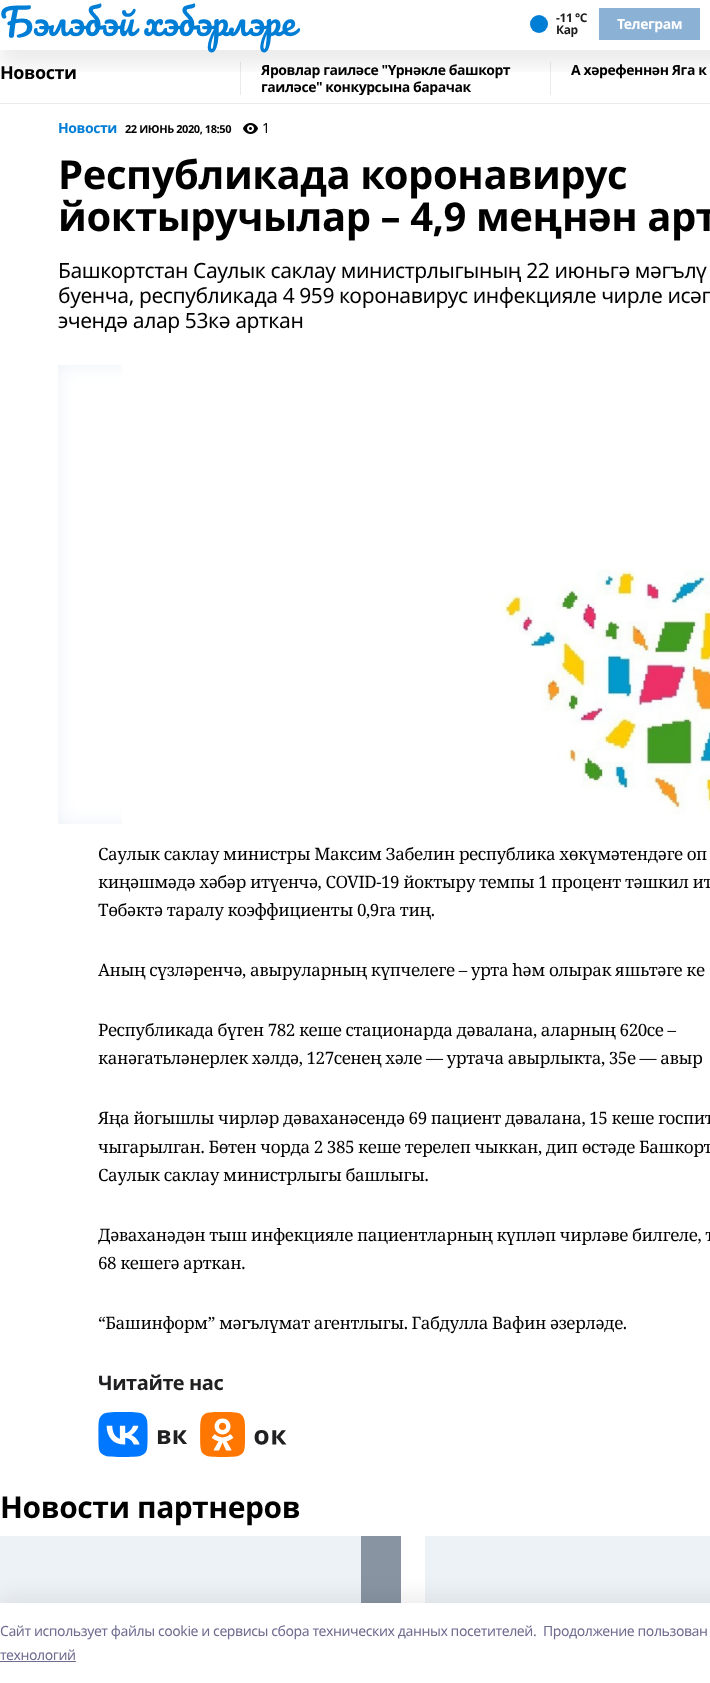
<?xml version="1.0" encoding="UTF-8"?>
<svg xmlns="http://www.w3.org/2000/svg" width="710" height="1683">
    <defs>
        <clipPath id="clip1"><rect x="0" y="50" width="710" height="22"/></clipPath>
        <filter id="blur1" x="-50%" y="-200%" width="200%" height="500%"><feGaussianBlur stdDeviation="10"/></filter>
        <clipPath id="clip2"><rect x="241" y="62" width="309" height="33"/></clipPath>
        <filter id="blur2" x="-50%" y="-200%" width="200%" height="500%"><feGaussianBlur stdDeviation="11.5"/></filter>
    </defs>
    <rect width="100%" height="100%" fill="#FFFFFF"/>
    <rect x="240" y="62" width="1" height="33" fill="#EAEAEA"/>
    <rect x="550" y="62" width="1" height="33" fill="#EAEAEA"/>
    <g clip-path="url(#clip1)">
        <rect x="0" y="15" width="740" height="50" fill="#000000" fill-opacity="0.08" filter="url(#blur1)"/>
    </g>
    <text x="0" y="36" font-family="Pacifico" font-size="36" letter-spacing="-0.42" fill="#007DD5">Бэлэбэй хэбэрлэре</text>
    <circle cx="539" cy="24" r="9" fill="#007DD5"/>
    <text font-family="Noto Sans" font-size="12" font-weight="700" letter-spacing="-0.42" fill="#1A1A1A">
        <tspan x="556" y="22">-11 °С</tspan>
        <tspan x="556" y="34">Кар</tspan>
    </text>
    <rect x="599" y="8" width="101" height="32" fill="#8BB1D4"/>
    <text x="617" y="29" font-family="Noto Sans" font-size="14" font-weight="700" letter-spacing="-0.42" fill="#FFFFFF">Телеграм</text>
    <rect x="0" y="103" width="710" height="1" fill="#EAEAEA"/>
    <text x="0" y="79" font-family="Noto Sans" font-size="18" font-weight="700" letter-spacing="-0.42" fill="#000000">Новости</text>
    <text x="261" y="75" font-family="Noto Sans" font-size="14" font-weight="700" letter-spacing="-0.42" fill="#000000">Яровлар гаиләсе "Үрнәкле башкорт</text>
    <g clip-path="url(#clip2)">
        <text x="261" y="92" font-family="Noto Sans" font-size="14" font-weight="700" letter-spacing="-0.42" fill="#000000">гаиләсе" конкурсына барачак</text>
    </g>
    <text x="571" y="75" font-family="Noto Sans" font-size="14" font-weight="700" letter-spacing="-0.42" fill="#000000">А хәрефеннән Яга к</text>
    <text x="58" y="133" font-family="Noto Sans" font-size="14" font-weight="700" letter-spacing="-0.42" fill="#007DD5">Новости</text>
    <text x="125" y="133" font-family="Noto Sans" font-size="11" font-weight="700" letter-spacing="-0.42" fill="#000000">22 ИЮНЬ 2020, 18:50</text>
    <image x="243" y="123" width="15" height="11" href="img_01.png"/>
    <text x="262" y="133" font-family="Noto Sans" font-size="14" letter-spacing="-0.42" fill="#000000">1</text>
    <text font-family="Noto Sans" font-size="40" font-weight="700" letter-spacing="-0.42" fill="#000000">
        <tspan x="58" y="189">Республикада коронавирус</tspan>
        <tspan x="58" y="231">йоктыручылар – 4,9 меңнән арт</tspan>
    </text>
    <text font-family="Noto Sans" font-size="21" letter-spacing="-0.42" fill="#000000">
        <tspan x="58" y="278">Башкортстан Саулык саклау министрлыгының 22 июньгә мәгълү</tspan>
        <tspan x="58" y="303">буенча, республикада 4 959 коронавирус инфекцияле чирле исәп</tspan>
        <tspan x="58" y="328">эчендә алар 53кә арткан</tspan>
    </text>
    <rect x="58" y="365" width="64" height="459" fill="#EDF2F7"/>
    <image x="58" y="365" width="64" height="459" href="img_02.png"/>
    <image x="122" y="365" width="588" height="459" href="img_03.png"/>
    <text font-family="Noto Serif" font-size="17" letter-spacing="-0.42" fill="#000000">
        <tspan x="98" y="860">Саулык саклау министры Максим Забелин республика хөкүмәтендәге оп</tspan>
        <tspan x="98" y="888">киңәшмәдә хәбәр итүенчә, COVID-19 йоктыру темпы 1 процент тәшкил ит</tspan>
        <tspan x="98" y="916">Төбәктә таралу коэффициенты 0,9га тиң.</tspan>
    </text>
    <text x="98" y="976" font-family="Noto Serif" font-size="17" letter-spacing="-0.42" fill="#000000">Аның сүзләренчә, авыруларның күпчелеге – урта һәм олырак яшьтәге ке</text>
    <text font-family="Noto Serif" font-size="17" letter-spacing="-0.42" fill="#000000">
        <tspan x="98" y="1036">Республикада бүген 782 кеше стационарда дәвалана, аларның 620се –</tspan>
        <tspan x="98" y="1064">канәгатьләнерлек хәлдә, 127сенең хәле — уртача авырлыкта, 35е — авыр</tspan>
    </text>
    <text font-family="Noto Serif" font-size="17" letter-spacing="-0.42" fill="#000000">
        <tspan x="98" y="1124">Яңа йогышлы чирләр дәваханәсендә 69 пациент дәвалана, 15 кеше госпит</tspan>
        <tspan x="98" y="1153">чыгарылган. Бөтен чорда 2 385 кеше терелеп чыккан, дип өстәде Башкорт</tspan>
        <tspan x="98" y="1181">Саулык саклау министрлыгы башлыгы.</tspan>
    </text>
    <text font-family="Noto Serif" font-size="17" letter-spacing="-0.42" fill="#000000">
        <tspan x="98" y="1241">Дәваханәдән тыш инфекцияле пациентларның күпләп чирләве билгеле, т</tspan>
        <tspan x="98" y="1269">68 кешегә арткан.</tspan>
    </text>
    <text x="98" y="1329" font-family="Noto Serif" font-size="17" letter-spacing="-0.42" fill="#000000">“Башинформ” мәгълүмат агентлыгы. Габдулла Вафин әзерләде.</text>
    <text x="98" y="1390" font-family="Noto Sans" font-size="20" font-weight="700" letter-spacing="-0.42" fill="#202022">Читайте нас</text>
    <image x="98" y="1412" width="89" height="45" href="img_04.png"/>
    <image x="200" y="1412" width="87" height="45" href="img_05.png"/>
    <text x="0" y="1518" font-family="Noto Sans" font-size="30" font-weight="700" letter-spacing="-0.42" fill="#000000">Новости партнеров</text>
    <rect x="361" y="1536" width="40" height="67" fill="#8894A2"/>
    <rect x="0" y="1536" width="361" height="67" fill="#EDF2F7"/>
    <rect x="425" y="1536" width="285" height="67" fill="#EDF2F7"/>
    <rect x="0" y="1597" width="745" height="80" fill="#14142B" fill-opacity="0.08" filter="url(#blur2)"/>
    <rect x="0" y="1603" width="710" height="80" fill="#FFFFFF"/>
    <text x="0" y="1636" font-family="Noto Sans" font-size="14" letter-spacing="-0.42" fill="#6F6C90">Cайт использует файлы cookie и сервисы сбора технических данных посетителей.</text>
    <text x="543" y="1636" font-family="Noto Sans" font-size="14" letter-spacing="-0.42" fill="#6F6C90">Продолжение пользован</text>
    <text x="0" y="1660" font-family="Noto Sans" font-size="14" letter-spacing="-0.42" fill="#6F6C90">технологий</text>
    <rect x="0" y="1661" width="76" height="1" fill="#6F6C90"/>
</svg>
